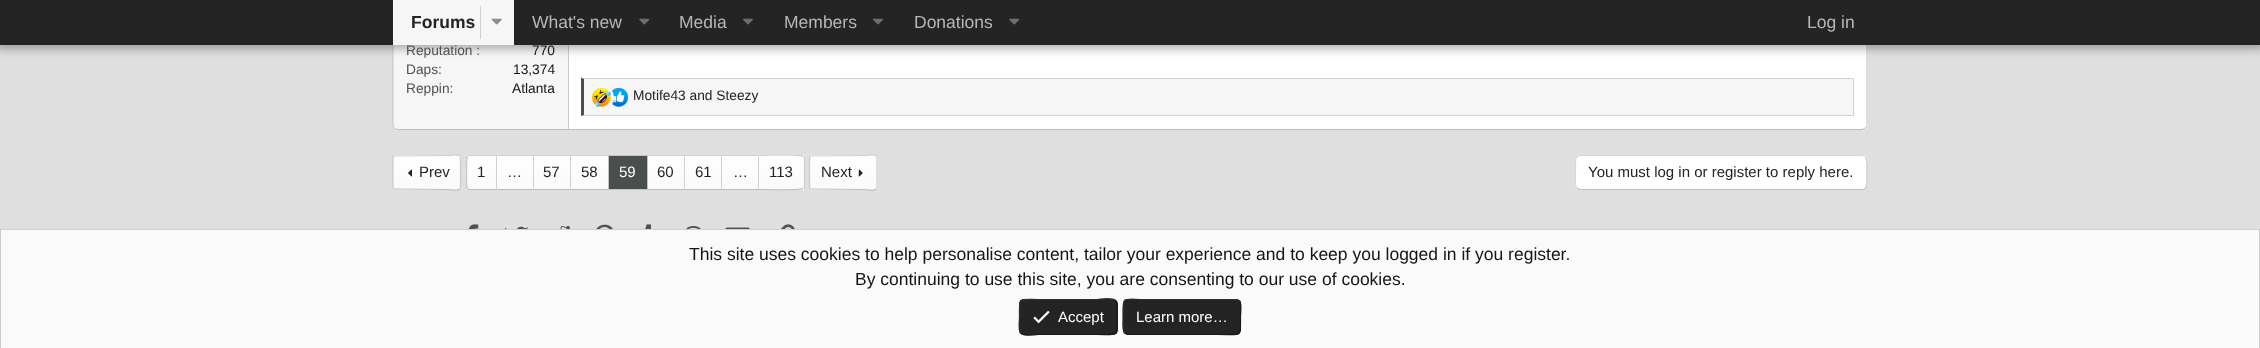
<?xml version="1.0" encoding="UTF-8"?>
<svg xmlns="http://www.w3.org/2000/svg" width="2260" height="348">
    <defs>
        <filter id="blur1" x="-50%" y="-200%" width="200%" height="500%"><feGaussianBlur stdDeviation="5"/></filter>
        <clipPath id="clip1"><rect x="393" y="155" width="68" height="35" rx="2.5"/></clipPath>
        <linearGradient id="g1" gradientUnits="userSpaceOnUse" x1="427" y1="156" x2="427" y2="124"><stop offset="0" stop-color="#FAFAFA"/><stop offset="1" stop-color="#FEFEFE"/></linearGradient>
        <linearGradient id="g2" gradientUnits="userSpaceOnUse" x1="427" y1="189" x2="427" y2="156"><stop offset="0" stop-color="#FAFAFA"/><stop offset="1" stop-color="#FEFEFE"/></linearGradient>
        <linearGradient id="g3" gradientUnits="userSpaceOnUse" x1="427" y1="221" x2="427" y2="189"><stop offset="0" stop-color="#FAFAFA"/><stop offset="1" stop-color="#FEFEFE"/></linearGradient>
        <linearGradient id="g4" gradientUnits="userSpaceOnUse" x1="482" y1="156" x2="482" y2="124"><stop offset="0" stop-color="#FAFAFA"/><stop offset="1" stop-color="#FEFEFE"/></linearGradient>
        <linearGradient id="g5" gradientUnits="userSpaceOnUse" x1="482" y1="189" x2="482" y2="156"><stop offset="0" stop-color="#FAFAFA"/><stop offset="1" stop-color="#FEFEFE"/></linearGradient>
        <linearGradient id="g6" gradientUnits="userSpaceOnUse" x1="482" y1="221" x2="482" y2="189"><stop offset="0" stop-color="#FAFAFA"/><stop offset="1" stop-color="#FEFEFE"/></linearGradient>
        <linearGradient id="g7" gradientUnits="userSpaceOnUse" x1="515" y1="189" x2="515" y2="156"><stop offset="0" stop-color="#FAFAFA"/><stop offset="1" stop-color="#FEFEFE"/></linearGradient>
        <linearGradient id="g8" gradientUnits="userSpaceOnUse" x1="552" y1="189" x2="552" y2="156"><stop offset="0" stop-color="#FAFAFA"/><stop offset="1" stop-color="#FEFEFE"/></linearGradient>
        <linearGradient id="g9" gradientUnits="userSpaceOnUse" x1="589" y1="189" x2="589" y2="156"><stop offset="0" stop-color="#FAFAFA"/><stop offset="1" stop-color="#FEFEFE"/></linearGradient>
        <linearGradient id="g10" gradientUnits="userSpaceOnUse" x1="666" y1="189" x2="666" y2="156"><stop offset="0" stop-color="#FAFAFA"/><stop offset="1" stop-color="#FEFEFE"/></linearGradient>
        <linearGradient id="g11" gradientUnits="userSpaceOnUse" x1="703" y1="189" x2="703" y2="156"><stop offset="0" stop-color="#FAFAFA"/><stop offset="1" stop-color="#FEFEFE"/></linearGradient>
        <linearGradient id="g12" gradientUnits="userSpaceOnUse" x1="740" y1="189" x2="740" y2="156"><stop offset="0" stop-color="#FAFAFA"/><stop offset="1" stop-color="#FEFEFE"/></linearGradient>
        <linearGradient id="g13" gradientUnits="userSpaceOnUse" x1="781" y1="156" x2="781" y2="124"><stop offset="0" stop-color="#FAFAFA"/><stop offset="1" stop-color="#FEFEFE"/></linearGradient>
        <linearGradient id="g14" gradientUnits="userSpaceOnUse" x1="781" y1="189" x2="781" y2="156"><stop offset="0" stop-color="#FAFAFA"/><stop offset="1" stop-color="#FEFEFE"/></linearGradient>
        <linearGradient id="g15" gradientUnits="userSpaceOnUse" x1="781" y1="221" x2="781" y2="189"><stop offset="0" stop-color="#FAFAFA"/><stop offset="1" stop-color="#FEFEFE"/></linearGradient>
        <clipPath id="clip2"><rect x="809" y="155" width="69" height="35" rx="2.5"/></clipPath>
        <linearGradient id="g16" gradientUnits="userSpaceOnUse" x1="843" y1="156" x2="843" y2="124"><stop offset="0" stop-color="#FAFAFA"/><stop offset="1" stop-color="#FEFEFE"/></linearGradient>
        <linearGradient id="g17" gradientUnits="userSpaceOnUse" x1="843" y1="189" x2="843" y2="156"><stop offset="0" stop-color="#FAFAFA"/><stop offset="1" stop-color="#FEFEFE"/></linearGradient>
        <linearGradient id="g18" gradientUnits="userSpaceOnUse" x1="843" y1="221" x2="843" y2="189"><stop offset="0" stop-color="#FAFAFA"/><stop offset="1" stop-color="#FEFEFE"/></linearGradient>
    </defs>
    <rect width="100%" height="100%" fill="#DFDFDF"/>
    <rect x="393" y="-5" width="1475" height="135" rx="5" fill="#FFFFFF"/>
    <path d="M 1865.5 -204.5 C 1866.5 -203.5 1867 -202.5 1867 -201 V 125 C 1867 126 1866.5 127.5 1865.5 128" fill="none" stroke="#CACACA" stroke-width="1.2"/>
    <path d="M 1865.5 128 L 1862.5 129.5 H 397.5 L 394.5 128" fill="none" stroke="#BDBDBD" stroke-width="1.2"/>
    <path d="M 394.5 128 C 393.5 127.5 393 126 393 125 V -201 C 393 -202.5 393.5 -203.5 394.5 -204.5" fill="none" stroke="#CACACA" stroke-width="1.2"/>
    <path d="M 398 -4 H 569 V 129 H 398 C 396 129 394 127 394 125 V 0 C 394 -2 396 -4 398 -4 Z" fill="#F6F6F6"/>
    <rect x="568" y="45" width="1" height="84" fill="#CACACA"/>
    <rect x="-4" y="-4" width="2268" height="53" fill="#000000" fill-opacity="0.3" filter="url(#blur1)"/>
    <rect x="0" y="0" width="2260" height="45" fill="#242424"/>
    <rect x="393" y="0" width="121" height="45" fill="#F6F6F6"/>
    <text x="411" y="28" font-family="Liberation Sans" font-size="17.5" font-weight="700" fill="#242424">Forums</text>
    <rect x="480" y="6" width="1" height="33" fill="#D1D1D1"/>
    <image x="491" y="18" width="11" height="7" href="img_01.png"/>
    <text x="532" y="28" font-family="Liberation Sans" font-size="17.5" fill="#B7B7B7">What's new</text>
    <image x="639" y="18" width="11" height="7" href="img_02.png"/>
    <text x="679" y="28" font-family="Liberation Sans" font-size="17.5" fill="#B7B7B7">Media</text>
    <image x="743" y="18" width="10" height="7" href="img_03.png"/>
    <text x="784" y="28" font-family="Liberation Sans" font-size="17.5" fill="#B7B7B7">Members</text>
    <image x="873" y="18" width="10" height="7" href="img_03.png"/>
    <text x="914" y="28" font-family="Liberation Sans" font-size="17.5" fill="#B7B7B7">Donations</text>
    <image x="1009" y="18" width="11" height="7" href="img_02.png"/>
    <text x="1807" y="28" font-family="Liberation Sans" font-size="17.5" fill="#B7B7B7">Log in</text>
    <text x="406" y="55" font-family="Liberation Sans" font-size="13.75" fill="#525151">Reputation :</text>
    <text x="532" y="55" font-family="Liberation Sans" font-size="13.75" fill="#141414">770</text>
    <text x="406" y="74" font-family="Liberation Sans" font-size="13.75" fill="#525151">Daps:</text>
    <text x="513" y="74" font-family="Liberation Sans" font-size="13.75" fill="#141414">13,374</text>
    <text x="406" y="93" font-family="Liberation Sans" font-size="13.75" fill="#525151">Reppin:</text>
    <text x="512" y="93" font-family="Liberation Sans" font-size="13.75" fill="#141414">Atlanta</text>
    <rect x="584" y="79" width="1269" height="36" fill="#F6F6F6"/>
    <path d="M 581 78 H 1854 L 1852 79 H 584 Z" fill="#D1D1D1"/>
    <rect x="1853" y="78" width="1" height="38" fill="#D1D1D1"/>
    <path d="M 1854 116 H 581 L 584 115 H 1852 Z" fill="#D1D1D1"/>
    <path d="M 581 116 V 77.5 L 584 79 V 115 Z" fill="#4D4D4D"/>
    <image x="612" y="88" width="16" height="19" href="img_05.png"/>
    <circle cx="601.5" cy="97.5" r="12.5" fill="#F6F6F6"/>
    <image x="592" y="88" width="19" height="19" href="img_04.png"/>
    <text x="633" y="100" font-family="Liberation Sans" font-size="13.75" fill="#242424">Motife43 and Steezy</text>
    <g clip-path="url(#clip1)">
        <rect x="393" y="155" width="68" height="1" fill="url(#g1)"/>
        <rect x="393" y="156" width="68" height="33" fill="url(#g2)"/>
        <rect x="393" y="189" width="68" height="1" fill="url(#g3)"/>
    </g>
    <path d="M 393.5 156 L 448 155.5 C 452 155.5 457 153.5 460 156" fill="none" stroke="#D1D1D1" stroke-width="1.2"/>
    <path d="M 460 156 L 460.5 157.5 V 187.5 L 460 189" fill="none" stroke="#CACACA" stroke-width="1.2"/>
    <path d="M 460 189 C 457 191.5 452 189.5 448 189.5 L 393.5 189" fill="none" stroke="#BDBDBD" stroke-width="1.2"/>
    <path d="M 393.5 189 L 393 187.5 V 157.5 L 393.5 156" fill="none" stroke="#CACACA" stroke-width="1.2"/>
    <image x="408" y="169" width="4" height="8" href="img_06.png"/>
    <text x="419" y="177" font-family="Liberation Sans" font-size="15" fill="#242424">Prev</text>
    <rect x="466" y="155" width="3" height="1" fill="url(#g4)"/>
    <rect x="466" y="156" width="30" height="33" fill="url(#g5)"/>
    <rect x="466" y="189" width="3" height="1" fill="url(#g6)"/>
    <path d="M 469 155 L 467 155.5 L 468 156.5 L 469 156 H 496 V 155 Z" fill="#D1D1D1"/>
    <path d="M 469 190 H 496 V 189 H 469 L 468 188.5 L 467 189.5 Z" fill="#BDBDBD"/>
    <path d="M 466 156.5 L 467 155.5 L 468 156.5 C 467 157.5 467 187.5 468 188.5 L 467 189.5 L 466 188.5 Z" fill="#CACACA"/>
    <text x="477" y="177" font-family="Liberation Sans" font-size="15" fill="#242424">1</text>
    <rect x="497" y="156" width="36" height="33" fill="url(#g7)"/>
    <rect x="496" y="155" width="112" height="1" fill="#D1D1D1"/>
    <rect x="496" y="189" width="112" height="1" fill="#BDBDBD"/>
    <rect x="496" y="155" width="1" height="35" fill="#D1D1D1"/>
    <text x="507" y="177" font-family="Liberation Sans" font-size="15" fill="#242424">…</text>
    <rect x="534" y="156" width="36" height="33" fill="url(#g8)"/>
    <rect x="533" y="155" width="1" height="35" fill="#D1D1D1"/>
    <text x="543" y="177" font-family="Liberation Sans" font-size="15" fill="#242424">57</text>
    <rect x="571" y="156" width="37" height="33" fill="url(#g9)"/>
    <rect x="570" y="155" width="1" height="35" fill="#D1D1D1"/>
    <text x="581" y="177" font-family="Liberation Sans" font-size="15" fill="#242424">58</text>
    <rect x="608.5" y="155.5" width="39" height="34" fill="#494F4E" stroke="#C2C2C2"/>
    <text x="619" y="177" font-family="Liberation Sans" font-size="15" fill="#FFFFFF">59</text>
    <rect x="648" y="156" width="36" height="33" fill="url(#g10)"/>
    <rect x="648" y="155" width="110" height="1" fill="#D1D1D1"/>
    <rect x="648" y="189" width="110" height="1" fill="#BDBDBD"/>
    <text x="657" y="177" font-family="Liberation Sans" font-size="15" fill="#242424">60</text>
    <rect x="685" y="156" width="36" height="33" fill="url(#g11)"/>
    <rect x="684" y="155" width="1" height="35" fill="#D1D1D1"/>
    <text x="695" y="177" font-family="Liberation Sans" font-size="15" fill="#242424">61</text>
    <rect x="722" y="156" width="36" height="33" fill="url(#g12)"/>
    <rect x="721" y="155" width="1" height="35" fill="#D1D1D1"/>
    <text x="733" y="177" font-family="Liberation Sans" font-size="15" fill="#242424">…</text>
    <rect x="758" y="155" width="47" height="1" fill="url(#g13)"/>
    <rect x="758" y="156" width="47" height="33" fill="url(#g14)"/>
    <rect x="758" y="189" width="47" height="1" fill="url(#g15)"/>
    <path d="M 758 155 L 759 156 C 764 156 802 155 803 157 L 804 156 L 802 155 Z" fill="#D1D1D1"/>
    <path d="M 805 188 V 158 C 805 157 805 156 804 156 L 803.5 156.5 L 804 158 V 188 L 803.5 188.5 L 804.5 189.5 Z" fill="#CACACA"/>
    <path d="M 758 190 C 764 190 802 191 804 189 L 803 188 C 801 190 764 189 759 189 V 188 Z" fill="#BDBDBD"/>
    <path d="M 758 155.5 V 189.5 L 759 188.5 V 156.5 Z" fill="#D1D1D1"/>
    <text x="769" y="177" font-family="Liberation Sans" font-size="15" fill="#242424">113</text>
    <g clip-path="url(#clip2)">
        <rect x="809" y="155" width="69" height="1" fill="url(#g16)"/>
        <rect x="809" y="156" width="69" height="33" fill="url(#g17)"/>
        <rect x="809" y="189" width="69" height="1" fill="url(#g18)"/>
    </g>
    <path d="M 810 156 L 864.5 155.5 C 868.5 155.5 873.5 153.5 876.5 156" fill="none" stroke="#D1D1D1" stroke-width="1.2"/>
    <path d="M 876.5 156 L 877 157.5 V 187.5 L 876.5 189" fill="none" stroke="#CACACA" stroke-width="1.2"/>
    <path d="M 876.5 189 C 873.5 191.5 868.5 189.5 864.5 189.5 L 810 189" fill="none" stroke="#BDBDBD" stroke-width="1.2"/>
    <path d="M 810 189 L 809.5 187.5 V 157.5 L 810 156" fill="none" stroke="#CACACA" stroke-width="1.2"/>
    <text x="821" y="177" font-family="Liberation Sans" font-size="15" fill="#242424">Next</text>
    <image x="858" y="169" width="5" height="8" href="img_07.png"/>
    <rect x="1575" y="155" width="293" height="35" rx="5" fill="#FFFFFF"/>
    <path d="M 1865.5 157 C 1868 159.5 1867 169.5 1867 172.5 V 181 C 1867 183.5 1867.5 186.5 1865.5 188.5 L 1863 189.5 H 1580 L 1577 188" fill="none" stroke="#BDBDBD" stroke-width="1.2"/>
    <path d="M 1577 188 C 1574.5 185.5 1575.5 175.5 1575.5 172.5 V 164 C 1575.5 161.5 1575 158.5 1577 156.5 L 1579.5 155.5 H 1862.5 L 1865.5 157" fill="none" stroke="#D7D7D7" stroke-width="1.2"/>
    <text x="1588" y="177" font-family="Liberation Sans" font-size="15" fill="#242424">You must log in or register to reply here.</text>
    <image x="469" y="224" width="10" height="5" href="img_08.png"/>
    <image x="505" y="226" width="23" height="3" href="img_09.png"/>
    <image x="560" y="225" width="10" height="4" href="img_10.png"/>
    <image x="596" y="224" width="17" height="5" href="img_11.png"/>
    <image x="645" y="224" width="6" height="5" href="img_12.png"/>
    <image x="686" y="225" width="15" height="4" href="img_13.png"/>
    <image x="725" y="227" width="25" height="2" href="img_14.png"/>
    <image x="780" y="224" width="15" height="5" href="img_15.png"/>
    <rect x="1" y="230" width="2258" height="118" fill="#FAFAFA"/>
    <rect x="0" y="229" width="2260" height="1" fill="#D1D1D1"/>
    <rect x="2259" y="229" width="1" height="119" fill="#CACACA"/>
    <rect x="0" y="229" width="1" height="119" fill="#CACACA"/>
    <text x="689" y="260" font-family="Liberation Sans" font-size="17.5" fill="#141414">This site uses cookies to help personalise content, tailor your experience and to keep you logged in if you register.</text>
    <text x="855" y="285" font-family="Liberation Sans" font-size="17.5" fill="#141414">By continuing to use this site, you are consenting to our use of cookies.</text>
    <rect x="1019" y="299" width="99" height="36" rx="5" fill="#242424"/>
    <path d="M 1115.5 300.5 C 1118 303.5 1117 313.5 1117 317 C 1117 337.5 1119.5 334.5 1097.5 334.5 H 1038.5 C 1038.5 334.5 1024 336.5 1020.5 333" fill="none" stroke="#171717" stroke-width="1.2"/>
    <path d="M 1020.5 333 C 1018 330.5 1019.5 320 1019.5 317 C 1019.5 296.5 1017 299.5 1038.5 299.5 H 1097.5 C 1098 299.5 1112 297 1115.5 300.5" fill="none" stroke="#313131" stroke-width="1.2"/>
    <image x="1033" y="310" width="17" height="14" href="img_16.png"/>
    <text x="1058" y="322" font-family="Liberation Sans" font-size="15" fill="#FFFFFF">Accept</text>
    <rect x="1123" y="299" width="118" height="36" rx="5" fill="#242424"/>
    <path d="M 1239.5 300.5 C 1242 303.5 1240.5 313.5 1240.5 317 C 1240.5 338.5 1242.5 334.5 1218 334.5 H 1127.5 L 1124.5 333" fill="none" stroke="#171717" stroke-width="1.2"/>
    <path d="M 1124.5 333 C 1122 330.5 1123 320 1123 317 C 1123 295 1121 299.5 1145.5 299.5 H 1236 L 1239.5 300.5" fill="none" stroke="#313131" stroke-width="1.2"/>
    <text x="1136" y="322" font-family="Liberation Sans" font-size="15" fill="#FFFFFF">Learn more…</text>
</svg>
